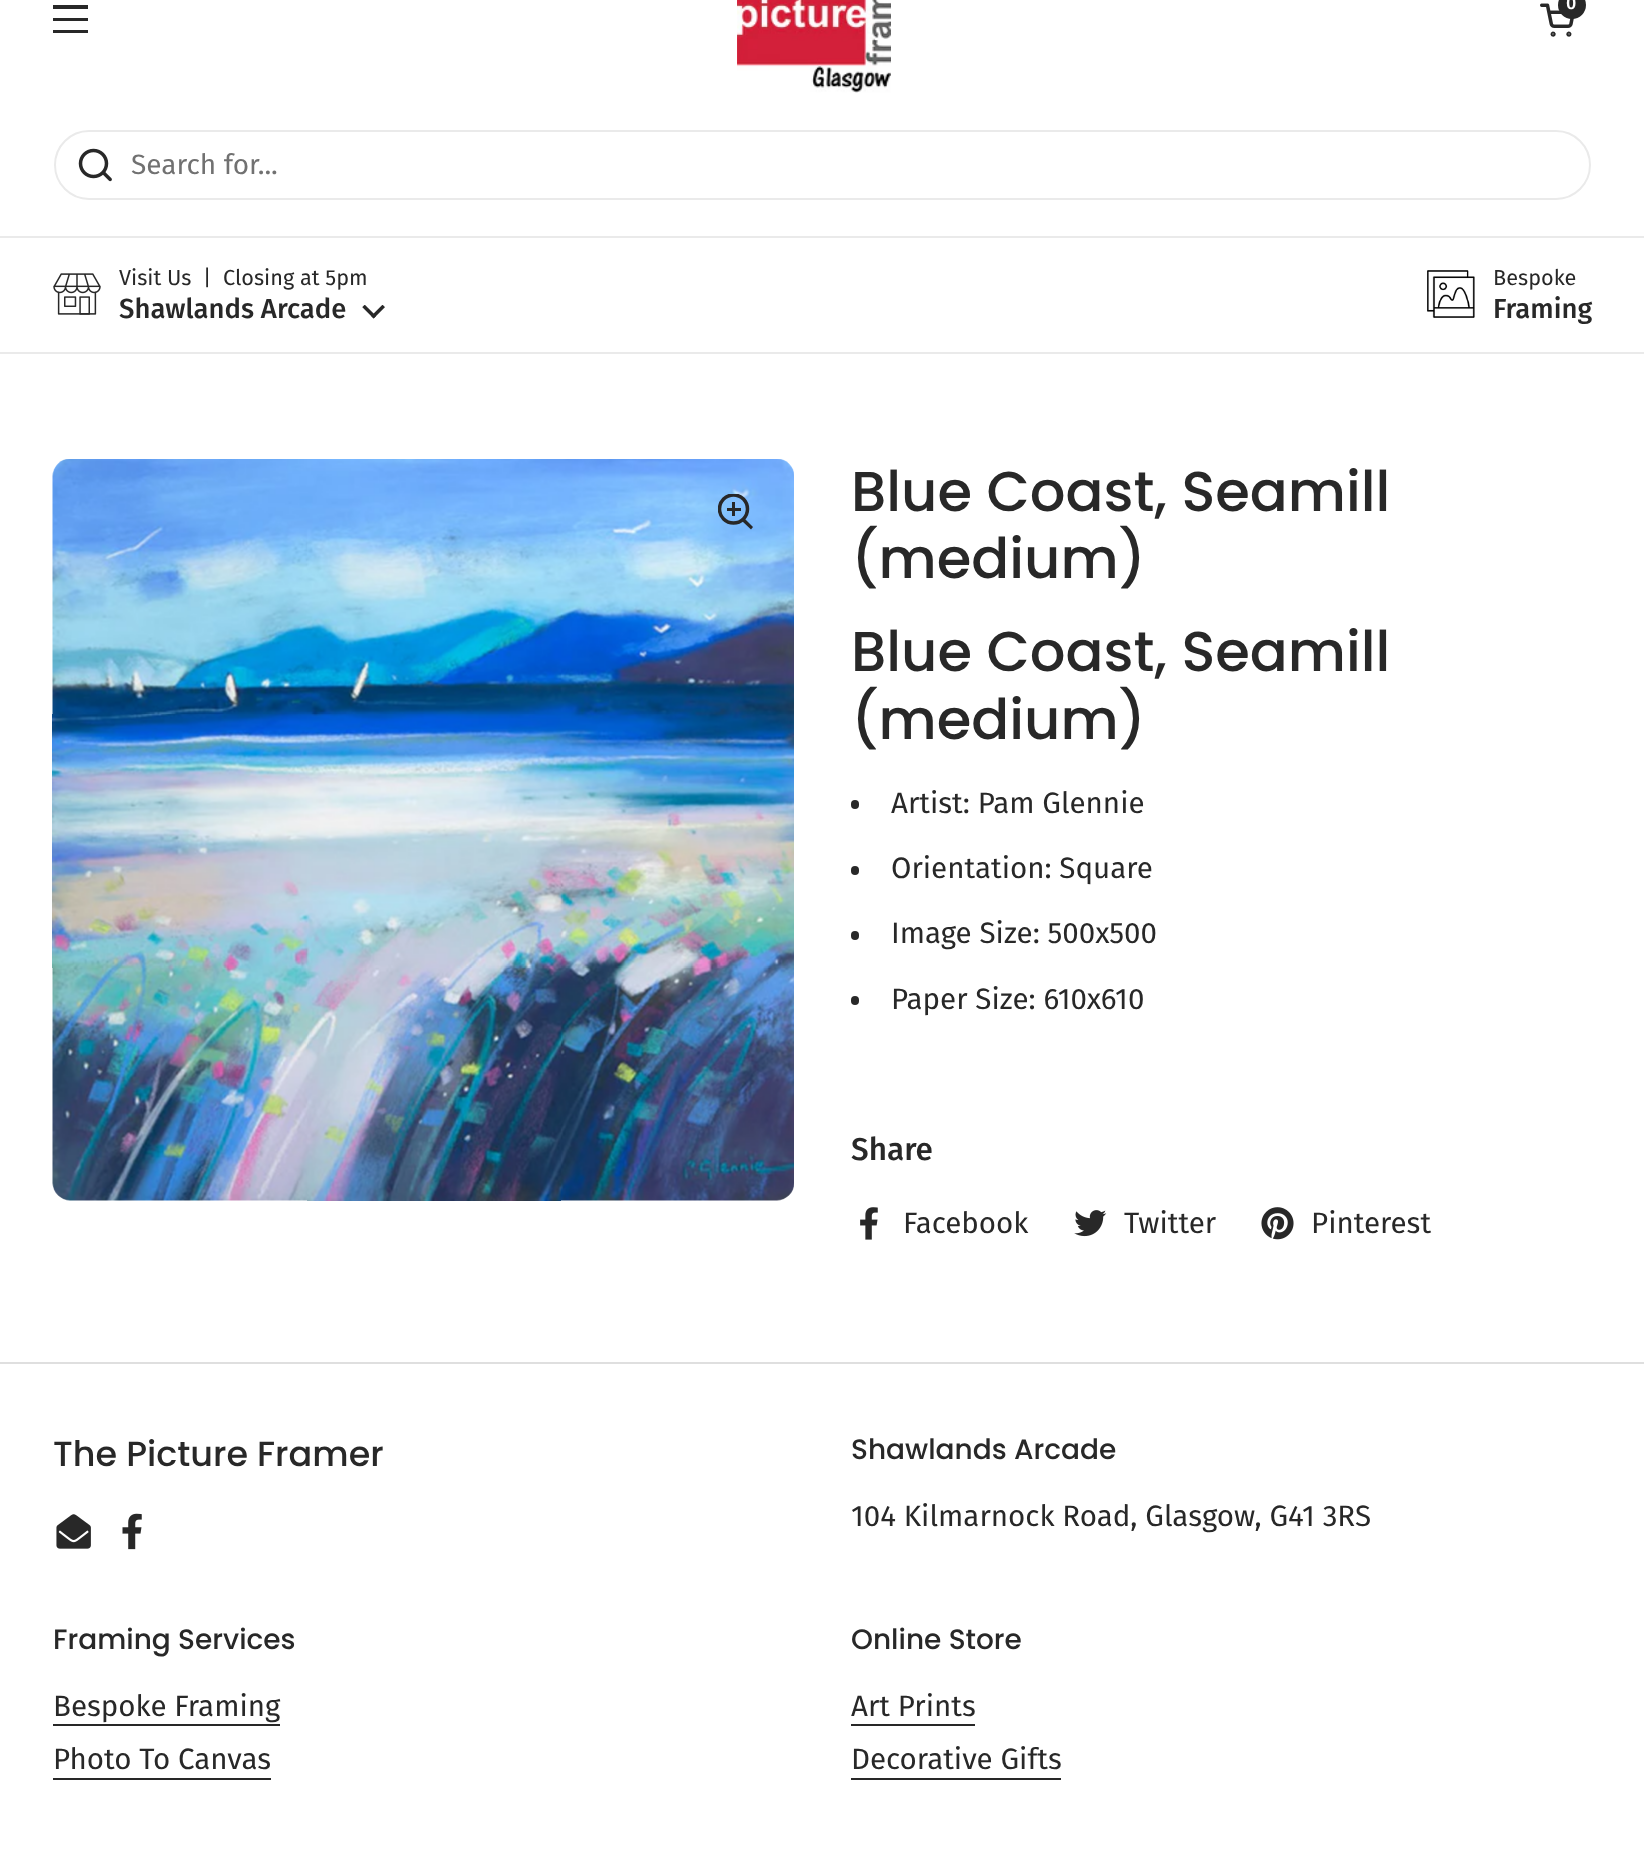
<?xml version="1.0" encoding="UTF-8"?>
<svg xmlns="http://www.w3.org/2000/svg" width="1644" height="1852">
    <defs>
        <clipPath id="clip1"><rect x="718" y="494" width="36" height="36"/></clipPath>
    </defs>
    <rect width="100%" height="100%" fill="#FFFFFF"/>
    <rect x="53" y="5" width="35" height="4" fill="#282828"/>
    <rect x="53" y="18" width="35" height="3" fill="#282828"/>
    <rect x="53" y="30" width="35" height="3" fill="#282828"/>
    <image x="737" y="0" width="154" height="93" href="img_01.png"/>
    <image x="1540" y="3" width="34" height="34" href="img_02.png"/>
    <circle cx="1572" cy="5" r="14" fill="#282828"/>
    <text x="1566" y="9" font-family="Fira Sans" font-size="18" font-weight="500" fill="#FFFFFF">0</text>
    <rect x="0" y="236" width="1644" height="2" fill="#EAEAEA"/>
    <rect x="55" y="131" width="1535" height="68" rx="34" fill="none" stroke="#EAEAEA" stroke-width="2"/>
    <image x="78" y="148" width="34" height="34" href="img_03.png"/>
    <text x="131" y="174" font-family="Fira Sans" font-size="28" fill="#717171">Search for...</text>
    <rect x="0" y="352" width="1644" height="2" fill="#EAEAEA"/>
    <image x="53" y="273" width="48" height="42" href="img_04.png"/>
    <text x="119" y="285" font-family="Fira Sans" font-size="21.7" fill="#282828" xml:space="preserve">Visit Us  |  Closing at 5pm</text>
    <text x="119" y="318" font-family="Fira Sans" font-size="27.5" font-weight="500" fill="#282828">Shawlands Arcade</text>
    <image x="362" y="305" width="23" height="14" href="img_05.png"/>
    <image x="1427" y="270" width="48" height="48" href="img_06.png"/>
    <text x="1493" y="285" font-family="Fira Sans" font-size="21.7" fill="#282828">Bespoke</text>
    <text x="1493" y="318" font-family="Fira Sans" font-size="27.5" font-weight="500" fill="#282828">Framing</text>
    <image x="52" y="459" width="742" height="742" href="img_07.png"/>
    <g clip-path="url(#clip1)">
        <circle cx="733.5" cy="509" r="14" fill="none" stroke="#282828" stroke-width="3.5"/>
    </g>
    <rect x="732" y="502" width="3" height="14" fill="#282828"/>
    <rect x="727" y="508" width="14" height="3" fill="#282828"/>
    <path d="M 742.5 521.5 L 745 519 L 753 527 L 751 529.5 Z" fill="#282828"/>
    <text font-family="Poppins" font-size="56" font-weight="500" fill="#282828">
        <tspan x="851" y="511">Blue Coast, Seamill</tspan>
        <tspan x="851" y="578">(medium)</tspan>
        <tspan x="851" y="671">Blue Coast, Seamill</tspan>
        <tspan x="851" y="739">(medium)</tspan>
    </text>
    <rect x="851" y="800" width="8" height="9" rx="4" fill="#282828"/>
    <text x="891" y="813" font-family="Fira Sans" font-size="29.5" fill="#282828">Artist: Pam Glennie</text>
    <rect x="851" y="866" width="8" height="9" rx="4" fill="#282828"/>
    <text x="891" y="878" font-family="Fira Sans" font-size="29.5" fill="#282828">Orientation: Square</text>
    <rect x="851" y="931" width="8" height="9" rx="4" fill="#282828"/>
    <text x="891" y="943" font-family="Fira Sans" font-size="29.5" fill="#282828">Image Size: 500x500</text>
    <rect x="851" y="996" width="8" height="9" rx="4" fill="#282828"/>
    <text x="891" y="1009" font-family="Fira Sans" font-size="29.5" fill="#282828">Paper Size: 610x610</text>
    <text x="851" y="1160" font-family="Fira Sans" font-size="31.5" font-weight="500" fill="#282828">Share</text>
    <image x="860" y="1207" width="18" height="33" href="img_08.png"/>
    <text x="903" y="1233" font-family="Fira Sans" font-size="29.5" fill="#282828">Facebook</text>
    <image x="1074" y="1210" width="33" height="27" href="img_09.png"/>
    <text x="1124" y="1233" font-family="Fira Sans" font-size="29.5" fill="#282828">Twitter</text>
    <image x="1261" y="1207" width="33" height="33" href="img_10.png"/>
    <text x="1311" y="1233" font-family="Fira Sans" font-size="29.5" fill="#282828">Pinterest</text>
    <rect x="0" y="1362" width="1644" height="2" fill="#DFDFDF"/>
    <text x="53" y="1466" font-family="Poppins" font-size="35" font-weight="500" fill="#282828">The Picture Framer</text>
    <image x="56" y="1514" width="35" height="35" href="img_11.png"/>
    <image x="122" y="1513" width="20" height="37" href="img_12.png"/>
    <text x="851" y="1459" font-family="Poppins" font-size="28" font-weight="500" fill="#282828">Shawlands Arcade</text>
    <text x="851" y="1526" font-family="Fira Sans" font-size="29.5" fill="#282828">104 Kilmarnock Road, Glasgow, G41 3RS</text>
    <text x="53" y="1649" font-family="Poppins" font-size="28" font-weight="500" fill="#282828">Framing Services</text>
    <text x="53" y="1716" font-family="Fira Sans" font-size="29.5" fill="#282828">Bespoke Framing</text>
    <rect x="53" y="1724" width="227" height="2" fill="#282828"/>
    <text x="53" y="1769" font-family="Fira Sans" font-size="29.5" fill="#282828">Photo To Canvas</text>
    <rect x="53" y="1778" width="218" height="2" fill="#282828"/>
    <text x="851" y="1649" font-family="Poppins" font-size="28" font-weight="500" fill="#282828">Online Store</text>
    <text x="851" y="1716" font-family="Fira Sans" font-size="29.5" fill="#282828">Art Prints</text>
    <rect x="851" y="1724" width="124" height="2" fill="#282828"/>
    <text x="851" y="1769" font-family="Fira Sans" font-size="29.5" fill="#282828">Decorative Gifts</text>
    <rect x="851" y="1778" width="210" height="2" fill="#282828"/>
</svg>
